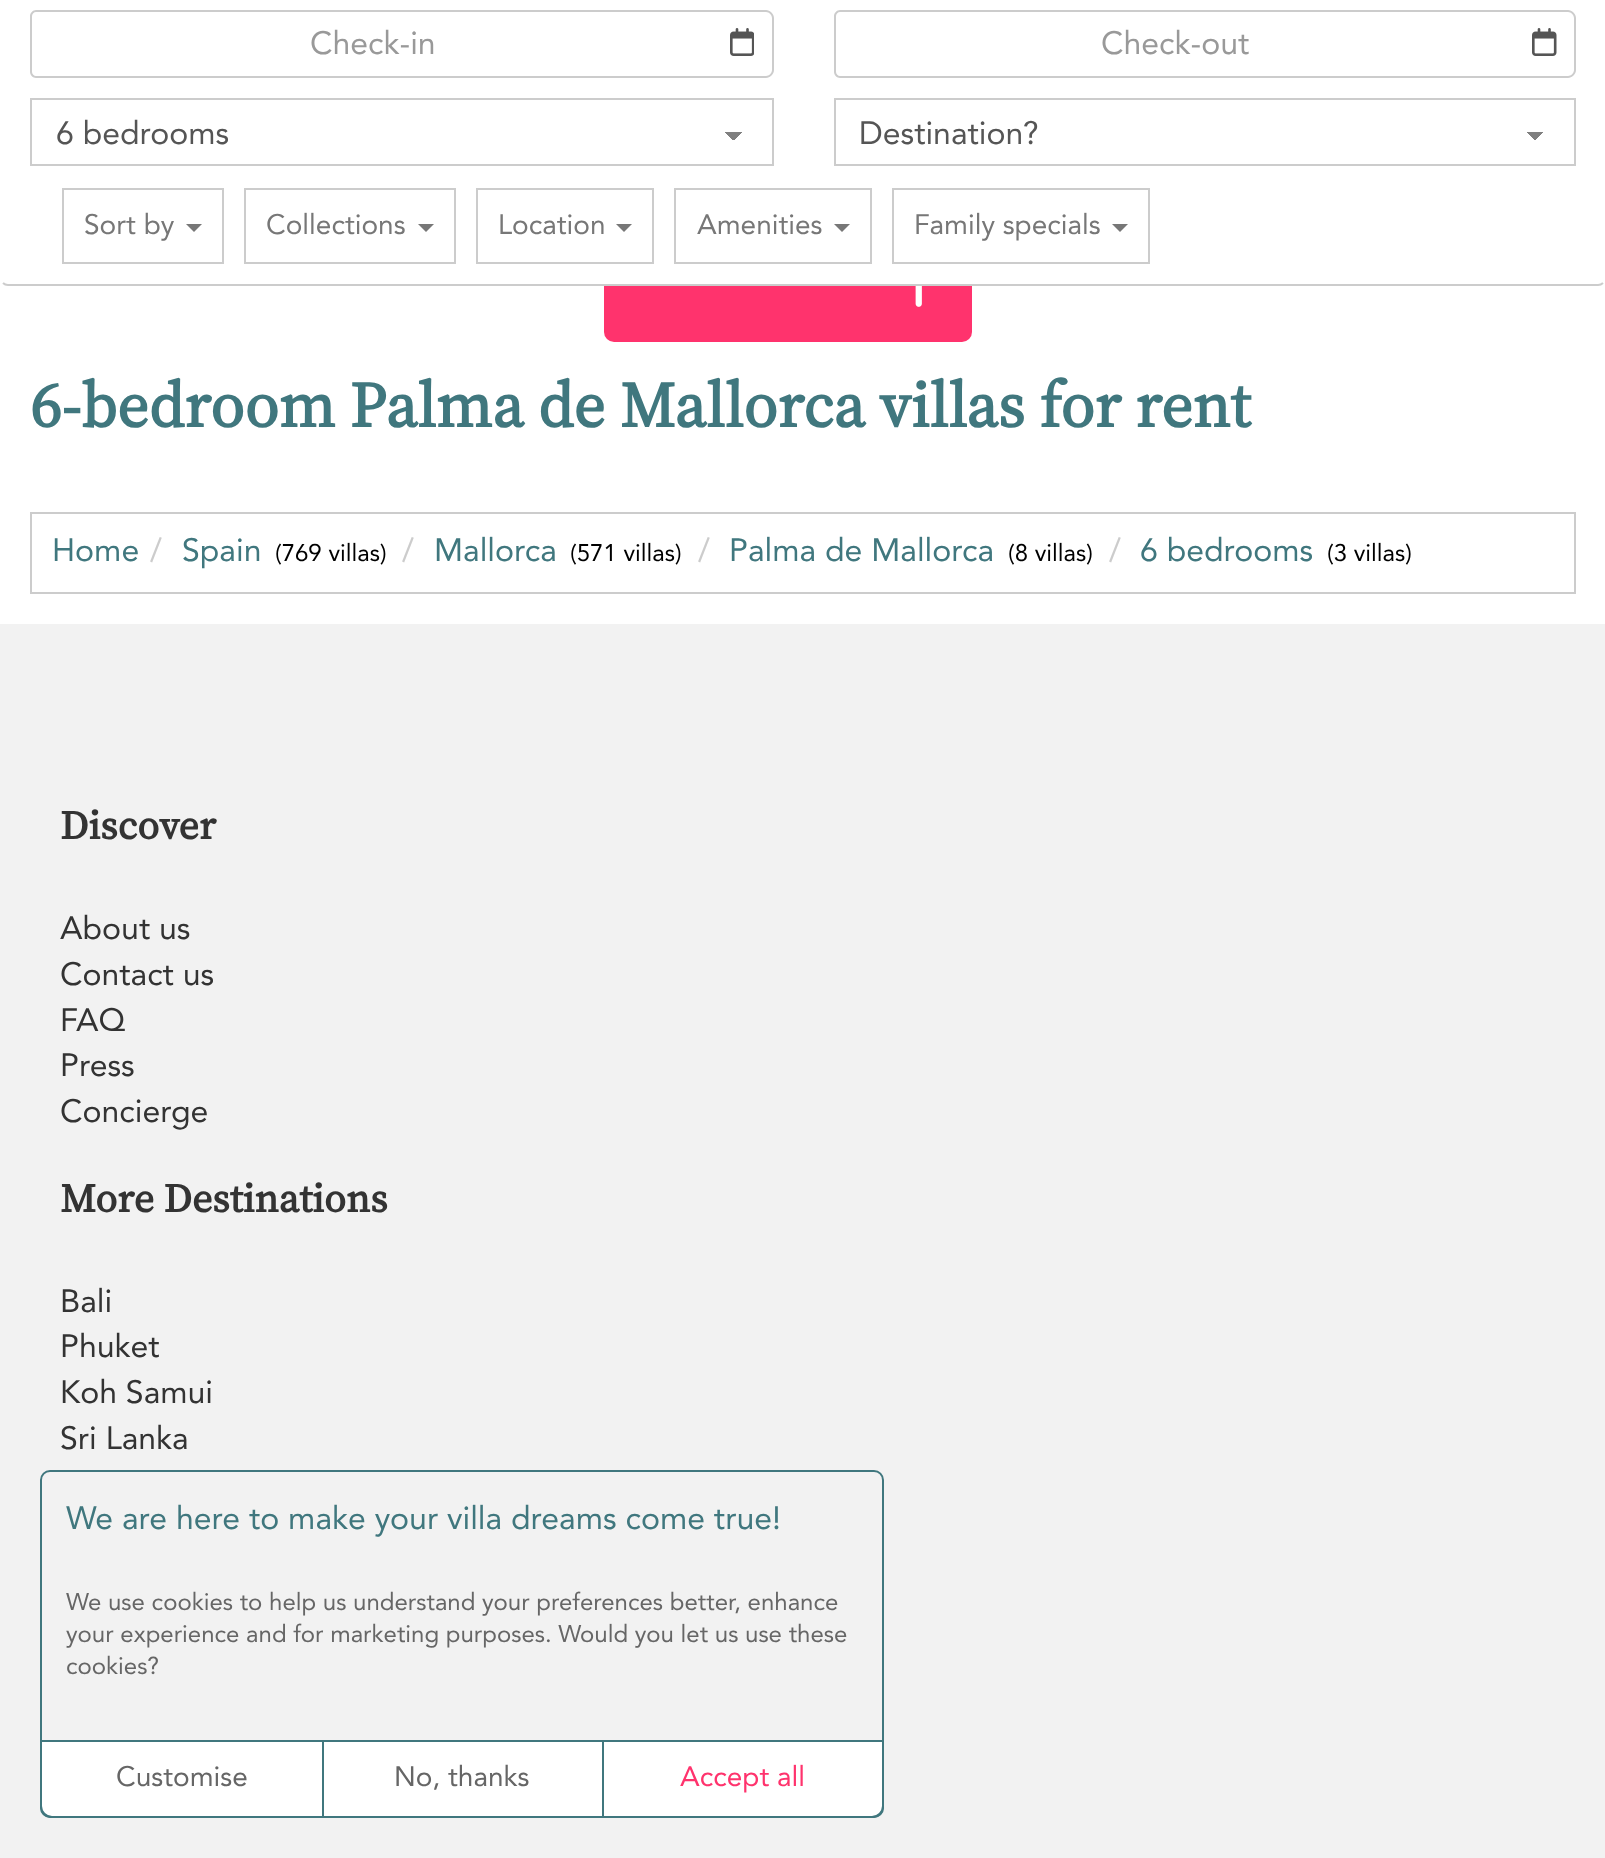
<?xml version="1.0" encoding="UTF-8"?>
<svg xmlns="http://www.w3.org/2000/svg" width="1605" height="1858">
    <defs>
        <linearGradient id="g1" gradientUnits="userSpaceOnUse" x1="733" y1="132" x2="742" y2="141"><stop offset="0.5" stop-color="#808080"/><stop offset="0.5" stop-color="#FFFFFF"/></linearGradient>
        <linearGradient id="g2" gradientUnits="userSpaceOnUse" x1="724" y1="140" x2="732" y2="132"><stop offset="0.5" stop-color="#FFFFFF"/><stop offset="0.5" stop-color="#808080"/></linearGradient>
        <linearGradient id="g3" gradientUnits="userSpaceOnUse" x1="1535" y1="132" x2="1544" y2="141"><stop offset="0.5" stop-color="#808080"/><stop offset="0.5" stop-color="#FFFFFF"/></linearGradient>
        <linearGradient id="g4" gradientUnits="userSpaceOnUse" x1="1526" y1="140" x2="1534" y2="132"><stop offset="0.5" stop-color="#FFFFFF"/><stop offset="0.5" stop-color="#808080"/></linearGradient>
    </defs>
    <rect width="100%" height="100%" fill="#FFFFFF"/>
    <path d="M 36 10 H 714 V 78 H 36 C 33 78 30 75 30 72 V 16 C 30 13 33 10 36 10 Z M 36 12 H 714 V 76 H 36 C 34 76 32 74 32 72 V 16 C 32 14 34 12 36 12 Z" fill="#CCCCCC" fill-rule="evenodd"/>
    <text x="310" y="54" font-family="Avenir" font-size="32" fill="#999999">Check-in</text>
    <path d="M 714 10 H 766 C 770 10 774 14 774 18 V 70 C 774 74 770 78 766 78 H 714 Z M 714 12 H 766 C 769 12 772 15 772 18 V 70 C 772 73 769 76 766 76 H 714 Z" fill="#CCCCCC" fill-rule="evenodd"/>
    <image x="730" y="28" width="24" height="28" href="img_01.png"/>
    <path d="M 840 10 H 1516 V 78 H 840 C 837 78 834 75 834 72 V 16 C 834 13 837 10 840 10 Z M 840 12 H 1516 V 76 H 840 C 838 76 836 74 836 72 V 16 C 836 14 838 12 840 12 Z" fill="#CCCCCC" fill-rule="evenodd"/>
    <text x="1101" y="54" font-family="Avenir" font-size="32" fill="#999999">Check-out</text>
    <path d="M 1516 10 H 1568 C 1572 10 1576 14 1576 18 V 70 C 1576 74 1572 78 1568 78 H 1516 Z M 1516 12 H 1568 C 1571 12 1574 15 1574 18 V 70 C 1574 73 1571 76 1568 76 H 1516 Z" fill="#CCCCCC" fill-rule="evenodd"/>
    <image x="1532" y="28" width="25" height="28" href="img_02.png"/>
    <rect x="732" y="132" width="10" height="8" fill="url(#g1)"/>
    <rect x="724" y="132" width="8" height="8" fill="url(#g2)"/>
    <rect x="31" y="99" width="742" height="66" fill="none" stroke="#CCCCCC" stroke-width="2"/>
    <text x="56" y="144" font-family="Avenir" font-size="32" fill="#555555">6 bedrooms</text>
    <rect x="1534" y="132" width="10" height="8" fill="url(#g3)"/>
    <rect x="1526" y="132" width="8" height="8" fill="url(#g4)"/>
    <rect x="835" y="99" width="740" height="66" fill="none" stroke="#CCCCCC" stroke-width="2"/>
    <text x="859" y="144" font-family="Avenir" font-size="32" fill="#555555">Destination?</text>
    <rect x="604" y="230" width="368" height="112" rx="10" fill="#FF336D"/>
    <rect x="604" y="230" width="368" height="56" fill="#FFFFFF"/>
    <path d="M 1603 283 C 1601.5 284.5 1600 285 1598 285 H 8 C 6 285 4.5 284.5 3 283" fill="none" stroke="#CCCCCC" stroke-width="2"/>
    <rect x="63" y="189" width="160" height="74" fill="none" stroke="#CCCCCC" stroke-width="2"/>
    <text x="84" y="234" font-family="Avenir" font-size="28" fill="#777777">Sort by</text>
    <path d="M 186 224 H 202 L 194 232 Z" fill="#777777"/>
    <rect x="245" y="189" width="210" height="74" fill="none" stroke="#CCCCCC" stroke-width="2"/>
    <text x="266" y="234" font-family="Avenir" font-size="28" fill="#777777">Collections</text>
    <path d="M 418 224 H 434 L 426 232 Z" fill="#777777"/>
    <rect x="477" y="189" width="176" height="74" fill="none" stroke="#CCCCCC" stroke-width="2"/>
    <text x="498" y="234" font-family="Avenir" font-size="28" fill="#777777">Location</text>
    <path d="M 616 224 H 632 L 624 232 Z" fill="#777777"/>
    <rect x="675" y="189" width="196" height="74" fill="none" stroke="#CCCCCC" stroke-width="2"/>
    <text x="697" y="234" font-family="Avenir" font-size="28" fill="#777777">Amenities</text>
    <path d="M 834 224 H 850 L 842 232 Z" fill="#777777"/>
    <rect x="893" y="189" width="256" height="74" fill="none" stroke="#CCCCCC" stroke-width="2"/>
    <text x="914" y="234" font-family="Avenir" font-size="28" fill="#777777">Family specials</text>
    <path d="M 1112 224 H 1128 L 1120 232 Z" fill="#777777"/>
    <image x="915" y="286" width="7" height="21" href="img_03.png"/>
    <text x="30" y="427" font-family="'Source Serif 4'" font-size="64" font-weight="700" fill="#40777E">6-bedroom Palma de Mallorca villas for rent</text>
    <rect x="31" y="513" width="1544" height="80" fill="none" stroke="#CCCCCC" stroke-width="2"/>
    <text x="52" y="561" font-family="Avenir" font-size="32" fill="#40777E">Home</text>
    <text x="150" y="561" font-family="Avenir" font-size="32" fill="#CCCCCC">/</text>
    <text x="182" y="561" font-family="Avenir" font-size="32" fill="#40777E">Spain</text>
    <text x="275" y="561" font-family="Avenir" font-size="24" fill="#000000">(769 villas)</text>
    <text x="402" y="561" font-family="Avenir" font-size="32" fill="#CCCCCC">/</text>
    <text x="434" y="561" font-family="Avenir" font-size="32" fill="#40777E">Mallorca</text>
    <text x="570" y="561" font-family="Avenir" font-size="24" fill="#000000">(571 villas)</text>
    <text x="698" y="561" font-family="Avenir" font-size="32" fill="#CCCCCC">/</text>
    <text x="729" y="561" font-family="Avenir" font-size="32" fill="#40777E">Palma de Mallorca</text>
    <text x="1008" y="561" font-family="Avenir" font-size="24" fill="#000000">(8 villas)</text>
    <text x="1109" y="561" font-family="Avenir" font-size="32" fill="#CCCCCC">/</text>
    <text x="1140" y="561" font-family="Avenir" font-size="32" fill="#40777E">6 bedrooms</text>
    <text x="1327" y="561" font-family="Avenir" font-size="24" fill="#000000">(3 villas)</text>
    <rect x="0" y="624" width="1605" height="1234" fill="#F2F2F2"/>
    <text x="60" y="839" font-family="'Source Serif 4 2'" font-size="40" font-weight="700" fill="#333333">Discover</text>
    <text font-family="Avenir" font-size="32" fill="#333333">
        <tspan x="60" y="939">About us</tspan>
        <tspan x="60" y="985">Contact us</tspan>
        <tspan x="60" y="1031">FAQ</tspan>
        <tspan x="60" y="1076">Press</tspan>
        <tspan x="60" y="1122">Concierge</tspan>
    </text>
    <text x="60" y="1212" font-family="'Source Serif 4 2'" font-size="40" font-weight="700" fill="#333333">More Destinations</text>
    <text font-family="Avenir" font-size="32" fill="#333333">
        <tspan x="60" y="1312">Bali</tspan>
        <tspan x="60" y="1357">Phuket</tspan>
        <tspan x="60" y="1403">Koh Samui</tspan>
        <tspan x="60" y="1449">Sri Lanka</tspan>
    </text>
    <rect x="41" y="1471" width="842" height="346" rx="9" fill="none" stroke="#40777E" stroke-width="2"/>
    <text x="66" y="1529" font-family="Avenir" font-size="32" fill="#40777E">We are here to make your villa dreams come true!</text>
    <text font-family="Avenir" font-size="24" fill="#666666">
        <tspan x="66" y="1610">We use cookies to help us understand your preferences better, enhance</tspan>
        <tspan x="66" y="1642">your experience and for marketing purposes. Would you let us use these</tspan>
        <tspan x="66" y="1674">cookies?</tspan>
    </text>
    <path d="M 602 1742 H 882 V 1806 C 882 1811.5 877.5 1816 872 1816 H 602 Z" fill="#FFFFFF"/>
    <path d="M 601 1741 H 883 V 1806 C 883 1812 878 1817 872 1817 H 601 Z" fill="none" stroke="#40777E" stroke-width="2"/>
    <rect x="324" y="1742" width="278" height="74" fill="#FFFFFF"/>
    <rect x="321" y="1741" width="282" height="76" fill="none" stroke="#40777E" stroke-width="2"/>
    <path d="M 42 1742 H 322 V 1816 H 52 C 46.5 1816 42 1811.5 42 1806 Z" fill="#FFFFFF"/>
    <path d="M 41 1741 H 323 V 1817 H 52 C 46 1817 41 1812 41 1806 Z" fill="none" stroke="#40777E" stroke-width="2"/>
    <text x="116" y="1786" font-family="Avenir" font-size="28" fill="#666666">Customise</text>
    <text x="394" y="1786" font-family="Avenir" font-size="28" fill="#666666">No, thanks</text>
    <text x="680" y="1786" font-family="Avenir" font-size="28" fill="#FF336D">Accept all</text>
</svg>
